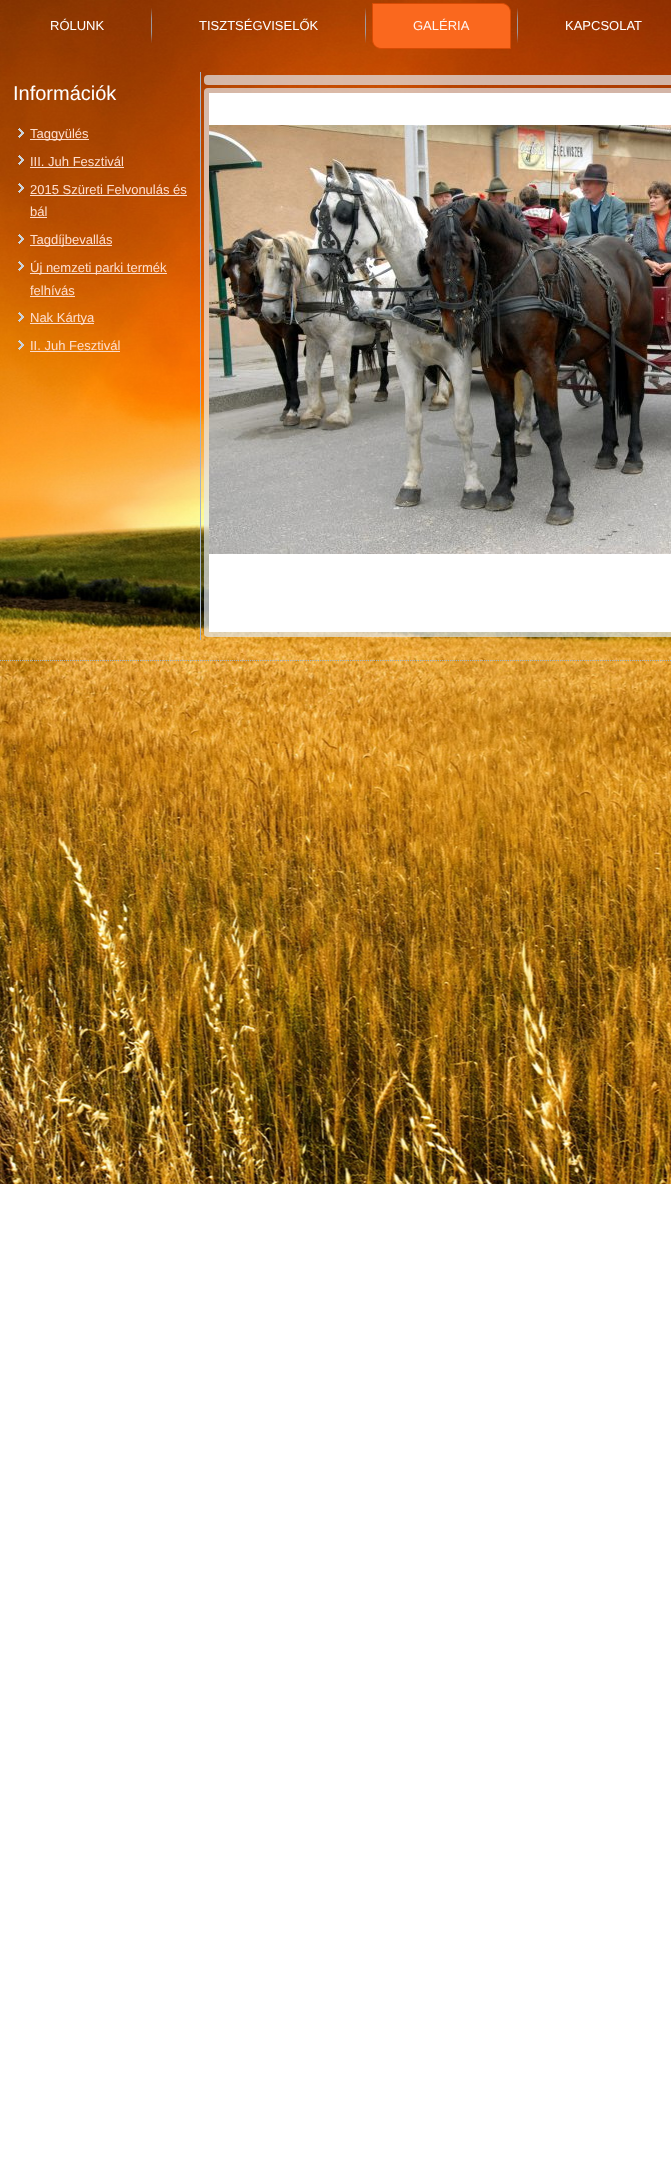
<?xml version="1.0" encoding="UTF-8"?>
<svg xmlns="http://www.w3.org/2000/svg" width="671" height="2173">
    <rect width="100%" height="100%" fill="#FFFFFF"/>
    <image x="0" y="0" width="671" height="1184" href="img_01.png"/>
    <text x="50" y="30" font-family="Liberation Sans" font-size="13" fill="#FFFFFF">RÓLUNK</text>
    <image x="151" y="8" width="1" height="35" href="img_02.png"/>
    <text x="199" y="30" font-family="Liberation Sans" font-size="13" fill="#FFFFFF">TISZTSÉGVISELŐK</text>
    <image x="365" y="8" width="1" height="35" href="img_03.png"/>
    <path d="M 372.5 3.5 H 502 C 506.5 3.5 510.5 7.5 510.5 12 V 48.5 H 381 C 376.5 48.5 372.5 44.5 372.5 40 Z" fill="#FA681E" stroke="#D74B04"/>
    <text x="413" y="30" font-family="Liberation Sans" font-size="13" fill="#FFF5F0">GALÉRIA</text>
    <image x="517" y="8" width="1" height="35" href="img_04.png"/>
    <text x="565" y="30" font-family="Liberation Sans" font-size="13" fill="#FFFFFF">KAPCSOLAT</text>
    <rect x="200" y="72" width="1" height="568" fill="#A3B4C8"/>
    <text x="13" y="100" font-family="Liberation Sans" font-size="20" fill="#FFFFFF">Információk</text>
    <image x="18" y="128" width="6" height="10" href="img_05.png"/>
    <rect x="30" y="139" width="59" height="1" fill="#FEDDCD"/>
    <text x="30" y="138" font-family="Liberation Sans" font-size="13" fill="#FEDDCD">Taggyülés</text>
    <image x="18" y="155" width="6" height="10" href="img_06.png"/>
    <text x="30" y="166" font-family="Liberation Sans" font-size="13" fill="#FEDDCD">III. Juh Fesztivál</text>
    <rect x="30" y="167" width="94" height="1" fill="#FEDDCD"/>
    <image x="18" y="183" width="6" height="10" href="img_07.png"/>
    <text x="30" y="194" font-family="Liberation Sans" font-size="13" fill="#FEDDCD">2015 Szüreti Felvonulás és</text>
    <rect x="30" y="195" width="157" height="1" fill="#FEDDCD"/>
    <text x="30" y="216" font-family="Liberation Sans" font-size="13" fill="#FEDDCD">bál</text>
    <rect x="30" y="217" width="17" height="1" fill="#FEDDCD"/>
    <image x="18" y="234" width="6" height="10" href="img_08.png"/>
    <rect x="30" y="245" width="82" height="1" fill="#FEDDCD"/>
    <text x="30" y="244" font-family="Liberation Sans" font-size="13" fill="#FEDDCD">Tagdíjbevallás</text>
    <image x="18" y="261" width="6" height="10" href="img_09.png"/>
    <rect x="30" y="273" width="137" height="1" fill="#FEDDCD"/>
    <text font-family="Liberation Sans" font-size="13" fill="#FEDDCD">
        <tspan x="30" y="272">Új nemzeti parki termék</tspan>
        <tspan x="30" y="295">felhívás</tspan>
    </text>
    <rect x="30" y="296" width="45" height="1" fill="#FEDDCD"/>
    <image x="18" y="312" width="6" height="10" href="img_10.png"/>
    <rect x="30" y="323" width="64" height="1" fill="#FEDDCD"/>
    <text x="30" y="322" font-family="Liberation Sans" font-size="13" fill="#FEDDCD">Nak Kártya</text>
    <image x="18" y="340" width="6" height="10" href="img_11.png"/>
    <text x="30" y="350" font-family="Liberation Sans" font-size="13" fill="#FEDDCD">II. Juh Fesztivál</text>
    <rect x="30" y="351" width="90" height="1" fill="#FEDDCD"/>
    <rect x="204" y="75" width="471" height="10" rx="4" fill="#E2E8EE" fill-opacity="0.7"/>
    <rect x="204" y="88" width="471" height="549" rx="4" fill="#E2E8EE" fill-opacity="0.7"/>
    <rect x="209" y="93" width="462" height="539" fill="#FFFFFF"/>
    <image x="209" y="125" width="462" height="429" href="img_12.png"/>
    <path d="M 0 660.5 H 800" fill="none" stroke="#9CAFC4" stroke-dasharray="1 1"/>
</svg>
